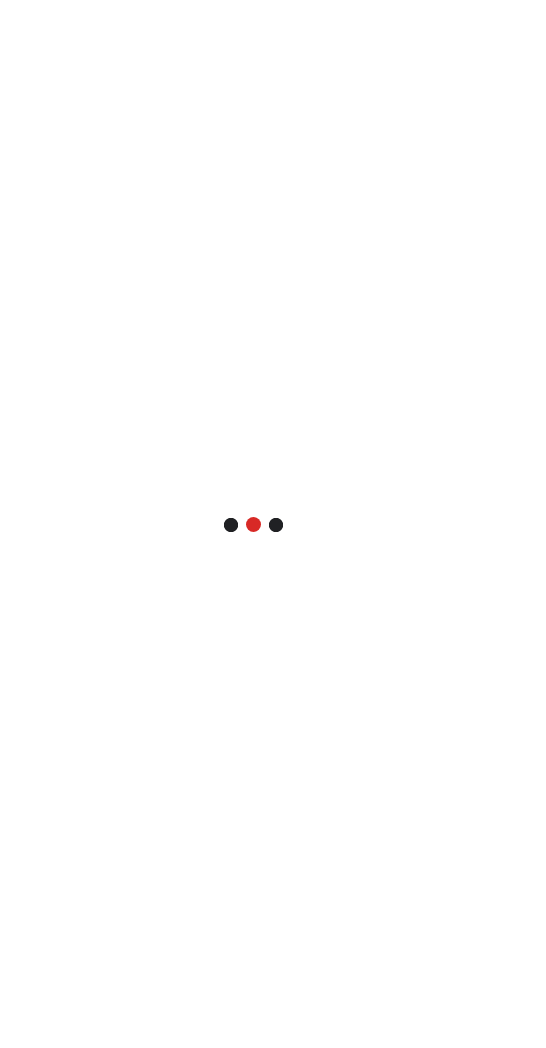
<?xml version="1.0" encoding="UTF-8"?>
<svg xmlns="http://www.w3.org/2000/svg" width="546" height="1048">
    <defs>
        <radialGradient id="g1" gradientUnits="userSpaceOnUse" cx="276" cy="525" r="7.5"><stop offset="0.9" stop-color="#202124"/><stop offset="1" stop-color="#FFFFFF"/></radialGradient>
        <radialGradient id="g2" gradientUnits="userSpaceOnUse" cx="231" cy="525" r="7.5"><stop offset="0.9" stop-color="#202124"/><stop offset="1" stop-color="#FFFFFF"/></radialGradient>
    </defs>
    <rect width="100%" height="100%" fill="#FFFFFF"/>
    <rect x="269" y="518" width="14" height="14" fill="url(#g1)"/>
    <rect x="224" y="518" width="14" height="14" fill="url(#g2)"/>
    <circle cx="253.5" cy="524.5" r="7.5" fill="#D82926"/>
</svg>
